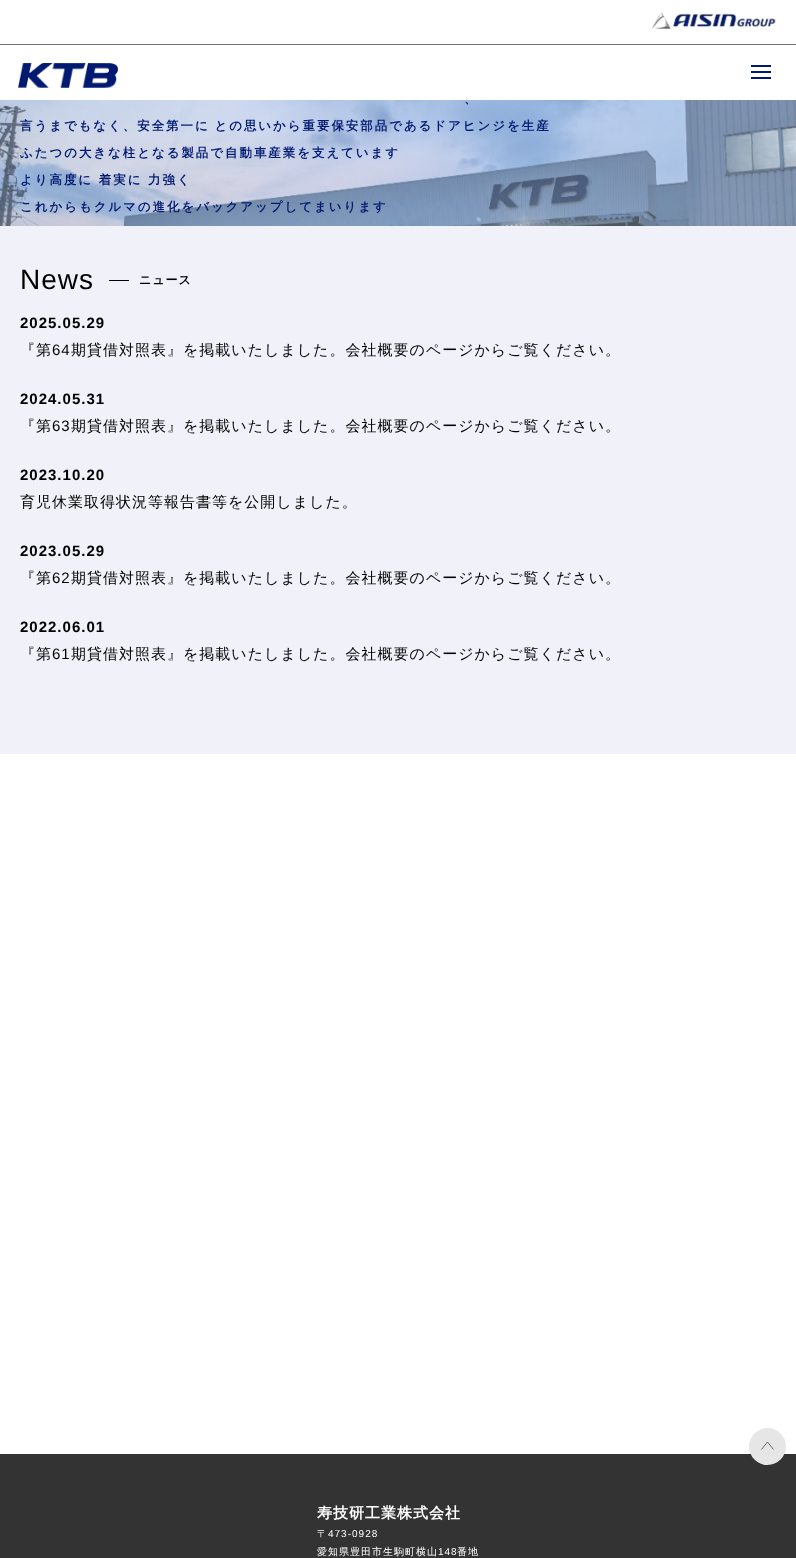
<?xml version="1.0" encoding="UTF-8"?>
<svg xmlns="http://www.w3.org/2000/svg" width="796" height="1558">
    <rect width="100%" height="100%" fill="#FFFFFF"/>
    <rect x="0" y="44" width="796" height="1" fill="#707070"/>
    <image x="651" y="12" width="125" height="17" href="img_01.png"/>
    <image x="18" y="63" width="100" height="25" href="img_02.png"/>
    <rect x="751" y="65" width="20" height="2" fill="#001A72"/>
    <rect x="751" y="71" width="20" height="2" fill="#001A72"/>
    <rect x="751" y="77" width="20" height="2" fill="#001A72"/>
    <image x="0" y="100" width="796" height="126" href="img_03.png"/>
    <text x="464" y="103" word-spacing="-1" font-family="WenQuanYi Zen Hei" font-size="12.45" font-weight="700" letter-spacing="2" fill="#001A72">、</text>
    <text x="20" y="130" word-spacing="-1" font-family="WenQuanYi Zen Hei" font-size="12.45" font-weight="700" letter-spacing="2" fill="#001A72">言うまでもなく、安全第一に との思いから重要保安部品であるドアヒンジを生産</text>
    <text x="20" y="157" font-family="WenQuanYi Zen Hei" font-size="12.45" font-weight="700" letter-spacing="2" fill="#001A72">ふたつの大きな柱となる製品で自動車産業を支えています</text>
    <text x="20" y="184" font-family="WenQuanYi Zen Hei" font-size="12.45" font-weight="700" letter-spacing="2" fill="#001A72">より高度に 着実に 力強く</text>
    <text x="20" y="211" font-family="WenQuanYi Zen Hei" font-size="12.45" font-weight="700" letter-spacing="2" fill="#001A72">これからもクルマの進化をバックアップしてまいります</text>
    <rect x="0" y="226" width="796" height="528" fill="#F1F1FA"/>
    <text x="20" y="289" font-family="Liberation Sans" font-size="28" letter-spacing="1" fill="#000000">News</text>
    <rect x="109" y="280" width="20" height="1" fill="#000000"/>
    <text x="139" y="284" font-family="WenQuanYi Zen Hei" font-size="12" font-weight="700" letter-spacing="1" fill="#000000">ニュース</text>
    <text x="20" y="328" font-family="Liberation Sans" font-size="15" font-weight="700" letter-spacing="1" fill="#000000">2025.05.29</text>
    <text x="20" y="355" font-family="WenQuanYi Zen Hei" font-size="15" font-weight="500" letter-spacing="1" fill="#000000">『第</text>
    <text x="52" y="355" font-family="Liberation Sans" font-size="15" letter-spacing="1" fill="#000000">64</text>
    <text x="71" y="355" font-family="WenQuanYi Zen Hei" font-size="15" font-weight="500" letter-spacing="1" fill="#000000">期貸借対照表』を掲載いたしました。会社概要のページからご覧ください。</text>
    <text x="20" y="404" font-family="Liberation Sans" font-size="15" font-weight="700" letter-spacing="1" fill="#000000">2024.05.31</text>
    <text x="20" y="431" font-family="WenQuanYi Zen Hei" font-size="15" font-weight="500" letter-spacing="1" fill="#000000">『第</text>
    <text x="52" y="431" font-family="Liberation Sans" font-size="15" letter-spacing="1" fill="#000000">63</text>
    <text x="71" y="431" font-family="WenQuanYi Zen Hei" font-size="15" font-weight="500" letter-spacing="1" fill="#000000">期貸借対照表』を掲載いたしました。会社概要のページからご覧ください。</text>
    <text x="20" y="480" font-family="Liberation Sans" font-size="15" font-weight="700" letter-spacing="1" fill="#000000">2023.10.20</text>
    <text x="20" y="507" font-family="WenQuanYi Zen Hei" font-size="15" font-weight="500" letter-spacing="1" fill="#000000">育児休業取得状況等報告書等を公開しました。</text>
    <text x="20" y="556" font-family="Liberation Sans" font-size="15" font-weight="700" letter-spacing="1" fill="#000000">2023.05.29</text>
    <text x="20" y="583" font-family="WenQuanYi Zen Hei" font-size="15" font-weight="500" letter-spacing="1" fill="#000000">『第</text>
    <text x="52" y="583" font-family="Liberation Sans" font-size="15" letter-spacing="1" fill="#000000">62</text>
    <text x="71" y="583" font-family="WenQuanYi Zen Hei" font-size="15" font-weight="500" letter-spacing="1" fill="#000000">期貸借対照表』を掲載いたしました。会社概要のページからご覧ください。</text>
    <text x="20" y="632" font-family="Liberation Sans" font-size="15" font-weight="700" letter-spacing="1" fill="#000000">2022.06.01</text>
    <text x="20" y="659" font-family="WenQuanYi Zen Hei" font-size="15" font-weight="500" letter-spacing="1" fill="#000000">『第</text>
    <text x="52" y="659" font-family="Liberation Sans" font-size="15" letter-spacing="1" fill="#000000">61</text>
    <text x="71" y="659" font-family="WenQuanYi Zen Hei" font-size="15" font-weight="500" letter-spacing="1" fill="#000000">期貸借対照表』を掲載いたしました。会社概要のページからご覧ください。</text>
    <rect x="0" y="1454" width="796" height="104" fill="#333333"/>
    <circle cx="767.5" cy="1446.5" r="18.5" fill="#E6E6E6"/>
    <path d="M 761.5 1449.5 L 767.5 1442 L 773.5 1449.5" fill="none" stroke="#333333" stroke-width="0.7"/>
    <text x="317" y="1518" font-family="WenQuanYi Zen Hei" font-size="15" font-weight="700" letter-spacing="1" fill="#FFFFFF">寿技研工業株式会社</text>
    <text x="317" y="1537" font-family="WenQuanYi Zen Hei" font-size="10" font-weight="500" letter-spacing="1" fill="#FFFFFF">〒</text>
    <text x="328" y="1537" font-family="Liberation Sans" font-size="10" letter-spacing="1" fill="#FFFFFF">473-0928</text>
    <text x="317" y="1555" font-family="WenQuanYi Zen Hei" font-size="10" font-weight="500" letter-spacing="1" fill="#FFFFFF">愛知県豊田市生駒町横山</text>
    <text x="438" y="1555" font-family="Liberation Sans" font-size="10" letter-spacing="1" fill="#FFFFFF">148</text>
    <text x="457" y="1555" font-family="WenQuanYi Zen Hei" font-size="10" font-weight="500" letter-spacing="1" fill="#FFFFFF">番地</text>
</svg>
